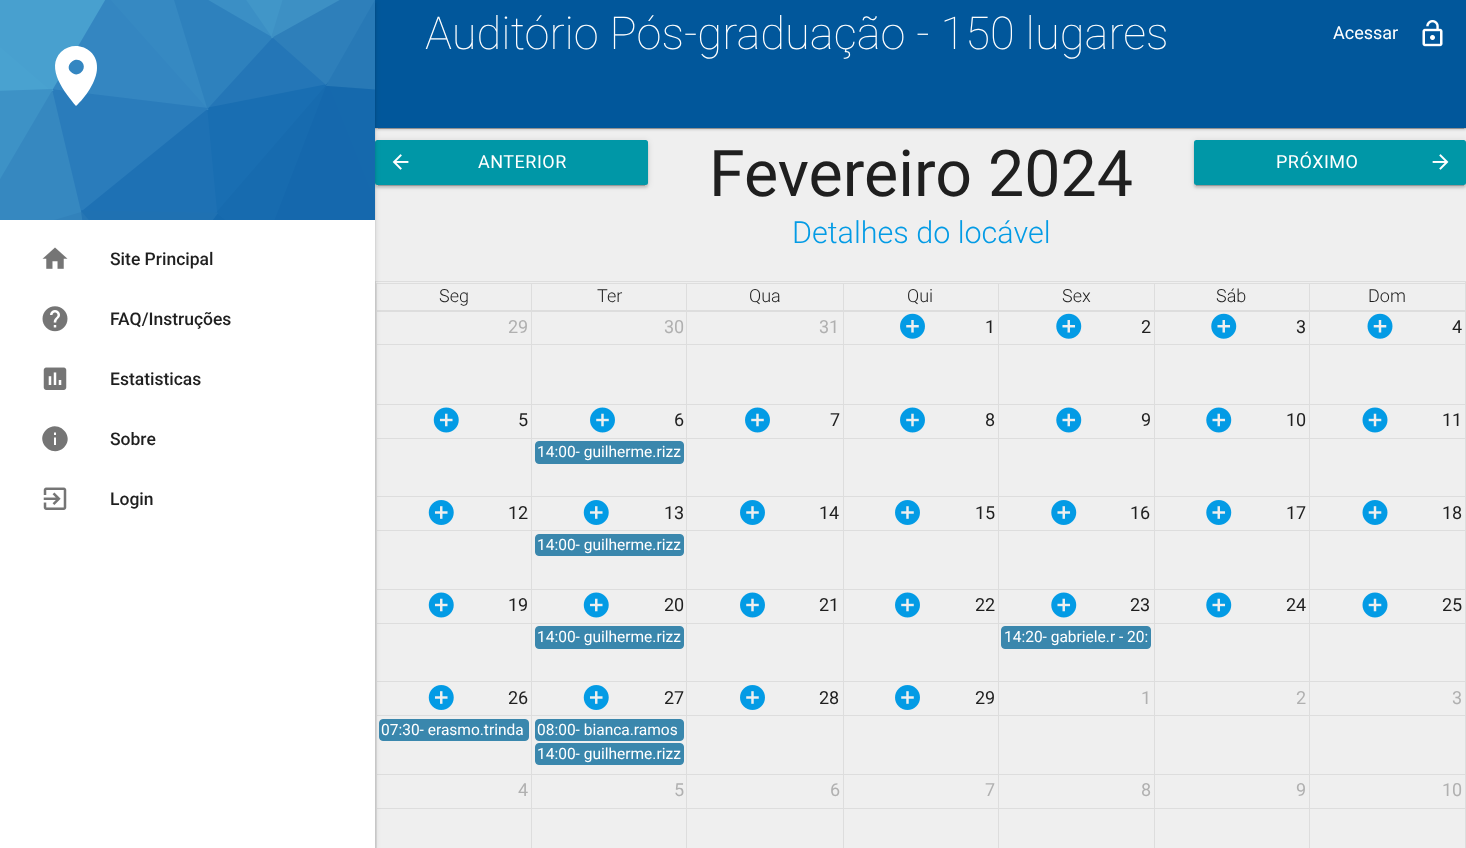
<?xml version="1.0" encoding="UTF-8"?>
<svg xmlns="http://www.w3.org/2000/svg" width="1466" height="848">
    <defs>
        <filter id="blur1" x="-50%" y="-200%" width="200%" height="500%"><feGaussianBlur stdDeviation="0.5"/></filter>
        <filter id="blur2" x="-50%" y="-200%" width="200%" height="500%"><feGaussianBlur stdDeviation="1"/></filter>
        <filter id="blur3" x="-50%" y="-200%" width="200%" height="500%"><feGaussianBlur stdDeviation="3"/></filter>
    </defs>
    <rect width="100%" height="100%" fill="#EFEFEF"/>
    <rect x="378" y="6" width="1086" height="123" fill="#000000" fill-opacity="0.2" filter="url(#blur1)"/>
    <rect x="375" y="128" width="1091" height="1" fill="#000000" fill-opacity="0.12"/>
    <rect x="375" y="3" width="1091" height="127" fill="#000000" fill-opacity="0.14" filter="url(#blur2)"/>
    <rect x="375" y="0" width="1091" height="128" fill="#01579B"/>
    <rect x="378" y="146" width="267" height="40" fill="#000000" fill-opacity="0.2" filter="url(#blur1)"/>
    <rect x="375" y="141" width="273" height="45" rx="2.5" fill="#000000" fill-opacity="0.12" filter="url(#blur3)"/>
    <rect x="375" y="143" width="273" height="45" rx="2.5" fill="#000000" fill-opacity="0.14" filter="url(#blur2)"/>
    <rect x="375" y="140" width="273" height="45" rx="2.5" fill="#0097A7"/>
    <rect x="375" y="310" width="1091" height="1" fill="#DDDDDD"/>
    <rect x="375" y="281" width="1091" height="1" fill="#DDDDDD"/>
    <rect x="375" y="310" width="1" height="538" fill="#DDDDDD"/>
    <rect x="375" y="281" width="1" height="30" fill="#DDDDDD"/>
    <rect x="1465" y="310" width="1" height="538" fill="#DDDDDD"/>
    <rect x="1465" y="281" width="1" height="30" fill="#DDDDDD"/>
    <rect x="1309" y="283" width="157" height="1" fill="#DDDDDD"/>
    <rect x="1309" y="283" width="1" height="28" fill="#DDDDDD"/>
    <rect x="1154" y="283" width="156" height="1" fill="#DDDDDD"/>
    <rect x="1154" y="283" width="1" height="28" fill="#DDDDDD"/>
    <rect x="998" y="283" width="157" height="1" fill="#DDDDDD"/>
    <rect x="998" y="283" width="1" height="28" fill="#DDDDDD"/>
    <rect x="843" y="283" width="156" height="1" fill="#DDDDDD"/>
    <rect x="843" y="283" width="1" height="28" fill="#DDDDDD"/>
    <rect x="686" y="283" width="158" height="1" fill="#DDDDDD"/>
    <rect x="686" y="283" width="1" height="28" fill="#DDDDDD"/>
    <rect x="531" y="283" width="157" height="1" fill="#DDDDDD"/>
    <rect x="531" y="283" width="1" height="28" fill="#DDDDDD"/>
    <rect x="376" y="283" width="157" height="1" fill="#DDDDDD"/>
    <rect x="376" y="283" width="1" height="28" fill="#DDDDDD"/>
    <rect x="1309" y="311" width="156" height="1" fill="#DDDDDD"/>
    <rect x="1309" y="404" width="156" height="1" fill="#DDDDDD"/>
    <rect x="1309" y="311" width="1" height="94" fill="#DDDDDD"/>
    <rect x="1154" y="311" width="156" height="1" fill="#DDDDDD"/>
    <rect x="1154" y="404" width="156" height="1" fill="#DDDDDD"/>
    <rect x="1154" y="311" width="1" height="94" fill="#DDDDDD"/>
    <rect x="998" y="311" width="157" height="1" fill="#DDDDDD"/>
    <rect x="998" y="404" width="157" height="1" fill="#DDDDDD"/>
    <rect x="998" y="311" width="1" height="94" fill="#DDDDDD"/>
    <rect x="843" y="311" width="156" height="1" fill="#DDDDDD"/>
    <rect x="843" y="404" width="156" height="1" fill="#DDDDDD"/>
    <rect x="843" y="311" width="1" height="94" fill="#DDDDDD"/>
    <rect x="686" y="311" width="158" height="1" fill="#DDDDDD"/>
    <rect x="686" y="404" width="158" height="1" fill="#DDDDDD"/>
    <rect x="686" y="311" width="1" height="94" fill="#DDDDDD"/>
    <rect x="531" y="311" width="157" height="1" fill="#DDDDDD"/>
    <rect x="531" y="404" width="157" height="1" fill="#DDDDDD"/>
    <rect x="531" y="311" width="1" height="94" fill="#DDDDDD"/>
    <rect x="376" y="311" width="157" height="1" fill="#DDDDDD"/>
    <rect x="376" y="404" width="157" height="1" fill="#DDDDDD"/>
    <rect x="376" y="311" width="1" height="94" fill="#DDDDDD"/>
    <rect x="376" y="344" width="1089" height="1" fill="#DDDDDD"/>
    <rect x="1309" y="496" width="156" height="1" fill="#DDDDDD"/>
    <rect x="1309" y="404" width="1" height="94" fill="#DDDDDD"/>
    <rect x="1154" y="496" width="156" height="1" fill="#DDDDDD"/>
    <rect x="1154" y="404" width="1" height="94" fill="#DDDDDD"/>
    <rect x="998" y="496" width="157" height="1" fill="#DDDDDD"/>
    <rect x="998" y="404" width="1" height="94" fill="#DDDDDD"/>
    <rect x="843" y="496" width="156" height="1" fill="#DDDDDD"/>
    <rect x="843" y="404" width="1" height="94" fill="#DDDDDD"/>
    <rect x="686" y="496" width="158" height="1" fill="#DDDDDD"/>
    <rect x="686" y="404" width="1" height="94" fill="#DDDDDD"/>
    <rect x="531" y="496" width="157" height="1" fill="#DDDDDD"/>
    <rect x="531" y="404" width="1" height="94" fill="#DDDDDD"/>
    <rect x="376" y="496" width="157" height="1" fill="#DDDDDD"/>
    <rect x="376" y="404" width="1" height="94" fill="#DDDDDD"/>
    <rect x="376" y="438" width="1089" height="1" fill="#DDDDDD"/>
    <rect x="1309" y="589" width="156" height="1" fill="#DDDDDD"/>
    <rect x="1309" y="496" width="1" height="94" fill="#DDDDDD"/>
    <rect x="1154" y="589" width="156" height="1" fill="#DDDDDD"/>
    <rect x="1154" y="496" width="1" height="94" fill="#DDDDDD"/>
    <rect x="998" y="589" width="157" height="1" fill="#DDDDDD"/>
    <rect x="998" y="496" width="1" height="94" fill="#DDDDDD"/>
    <rect x="843" y="589" width="156" height="1" fill="#DDDDDD"/>
    <rect x="843" y="496" width="1" height="94" fill="#DDDDDD"/>
    <rect x="686" y="589" width="158" height="1" fill="#DDDDDD"/>
    <rect x="686" y="496" width="1" height="94" fill="#DDDDDD"/>
    <rect x="531" y="589" width="157" height="1" fill="#DDDDDD"/>
    <rect x="531" y="496" width="1" height="94" fill="#DDDDDD"/>
    <rect x="376" y="589" width="157" height="1" fill="#DDDDDD"/>
    <rect x="376" y="496" width="1" height="94" fill="#DDDDDD"/>
    <rect x="376" y="530" width="1089" height="1" fill="#DDDDDD"/>
    <rect x="1309" y="681" width="156" height="1" fill="#DDDDDD"/>
    <rect x="1309" y="589" width="1" height="94" fill="#DDDDDD"/>
    <rect x="1154" y="681" width="156" height="1" fill="#DDDDDD"/>
    <rect x="1154" y="589" width="1" height="94" fill="#DDDDDD"/>
    <rect x="998" y="681" width="157" height="1" fill="#DDDDDD"/>
    <rect x="998" y="589" width="1" height="94" fill="#DDDDDD"/>
    <rect x="843" y="681" width="156" height="1" fill="#DDDDDD"/>
    <rect x="843" y="589" width="1" height="94" fill="#DDDDDD"/>
    <rect x="686" y="681" width="158" height="1" fill="#DDDDDD"/>
    <rect x="686" y="589" width="1" height="94" fill="#DDDDDD"/>
    <rect x="531" y="681" width="157" height="1" fill="#DDDDDD"/>
    <rect x="531" y="589" width="1" height="94" fill="#DDDDDD"/>
    <rect x="376" y="681" width="157" height="1" fill="#DDDDDD"/>
    <rect x="376" y="589" width="1" height="94" fill="#DDDDDD"/>
    <rect x="376" y="623" width="1089" height="1" fill="#DDDDDD"/>
    <rect x="1309" y="774" width="156" height="1" fill="#DDDDDD"/>
    <rect x="1309" y="681" width="1" height="94" fill="#DDDDDD"/>
    <rect x="1154" y="774" width="156" height="1" fill="#DDDDDD"/>
    <rect x="1154" y="681" width="1" height="94" fill="#DDDDDD"/>
    <rect x="998" y="774" width="157" height="1" fill="#DDDDDD"/>
    <rect x="998" y="681" width="1" height="94" fill="#DDDDDD"/>
    <rect x="843" y="774" width="156" height="1" fill="#DDDDDD"/>
    <rect x="843" y="681" width="1" height="94" fill="#DDDDDD"/>
    <rect x="686" y="774" width="158" height="1" fill="#DDDDDD"/>
    <rect x="686" y="681" width="1" height="94" fill="#DDDDDD"/>
    <rect x="531" y="774" width="157" height="1" fill="#DDDDDD"/>
    <rect x="531" y="681" width="1" height="94" fill="#DDDDDD"/>
    <rect x="376" y="774" width="157" height="1" fill="#DDDDDD"/>
    <rect x="376" y="681" width="1" height="167" fill="#DDDDDD"/>
    <rect x="376" y="715" width="1089" height="1" fill="#DDDDDD"/>
    <rect x="379.5" y="719.5" width="149" height="21" rx="3.5" fill="#3A87AD" stroke="#3A87AD"/>
    <rect x="531" y="774" width="1" height="74" fill="#DDDDDD"/>
    <rect x="686" y="774" width="1" height="74" fill="#DDDDDD"/>
    <rect x="843" y="774" width="1" height="74" fill="#DDDDDD"/>
    <rect x="998" y="774" width="1" height="74" fill="#DDDDDD"/>
    <rect x="1154" y="774" width="1" height="74" fill="#DDDDDD"/>
    <rect x="1309" y="774" width="1" height="74" fill="#DDDDDD"/>
    <rect x="376" y="808" width="1089" height="1" fill="#DDDDDD"/>
    <rect x="0" y="1" width="375" height="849" fill="#000000" fill-opacity="0.12" filter="url(#blur3)"/>
    <rect x="0" y="3" width="375" height="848" fill="#000000" fill-opacity="0.14" filter="url(#blur2)"/>
    <rect x="0" y="220" width="375" height="628" fill="#FFFFFF"/>
    <image x="0" y="0" width="375" height="220" href="img_01.png"/>
    <path d="M 71 72 C 78 79 88 69 82 62 C 75 55 64 66 71 72 Z M 61 52 C 75 39 98 49 97 68 C 97 81 85 98 76 106 C 65 93 45 68 61 52 Z" fill="#FFFFFF"/>
    <image x="42" y="247" width="26" height="22" href="img_02.png"/>
    <text x="110" y="265" font-family="Roboto" font-size="17.5" font-weight="500" fill="#1F1F1F">Site Principal</text>
    <image x="42" y="306" width="26" height="26" href="img_03.png"/>
    <text x="110" y="325" font-family="Roboto" font-size="17.5" font-weight="500" fill="#1F1F1F">FAQ/Instruções</text>
    <image x="43" y="367" width="24" height="23" href="img_04.png"/>
    <text x="110" y="385" font-family="Roboto" font-size="17.5" font-weight="500" fill="#1F1F1F">Estatisticas</text>
    <path d="M 56 435 V 432.5 H 54 V 435 Z M 56 445 V 437.5 H 54 V 445 Z M 46 430 C 58 418.5 75.5 436 64 447.5 C 52 459 34.5 441.5 46 430 Z" fill="#757575"/>
    <text x="110" y="445" font-family="Roboto" font-size="17.5" font-weight="500" fill="#1F1F1F">Sobre</text>
    <image x="43" y="487" width="24" height="23" href="img_05.png"/>
    <text x="110" y="505" font-family="Roboto" font-size="17.5" font-weight="500" fill="#1F1F1F">Login</text>
    <text x="425" y="49" font-family="Roboto" font-size="45.25" font-weight="100" fill="#FFFFFF">Auditório Pós-graduação - 150 lugares</text>
    <text x="1333" y="39" font-family="Roboto" font-size="18" fill="#FFFFFF">Acessar</text>
    <image x="1422" y="20" width="21" height="27" href="img_06.png"/>
    <image x="392" y="154" width="17" height="16" href="img_07.png"/>
    <text x="478" y="168" font-family="Roboto" font-size="18" letter-spacing="0.5" fill="#FFFFFF">ANTERIOR</text>
    <text x="709" y="196" font-family="Roboto" font-size="64.5" fill="#1F1F1F">Fevereiro 2024</text>
    <text x="792" y="243" font-family="Roboto" font-size="30.5" font-weight="300" fill="#039BE5">Detalhes do locável</text>
    <rect x="1196" y="146" width="268" height="40" fill="#000000" fill-opacity="0.2" filter="url(#blur1)"/>
    <rect x="1194" y="141" width="272" height="45" rx="2.5" fill="#000000" fill-opacity="0.12" filter="url(#blur3)"/>
    <rect x="1194" y="143" width="272" height="45" rx="2.5" fill="#000000" fill-opacity="0.14" filter="url(#blur2)"/>
    <rect x="1194" y="140" width="272" height="45" rx="2.5" fill="#0097A7"/>
    <text x="1276" y="168" font-family="Roboto" font-size="18" letter-spacing="0.5" fill="#FFFFFF">PRÓXIMO</text>
    <image x="1432" y="154" width="17" height="16" href="img_08.png"/>
    <text x="439" y="302" font-family="Roboto" font-size="18" font-weight="300" fill="#1F1F1F">Seg</text>
    <text x="597" y="302" font-family="Roboto" font-size="18" font-weight="300" fill="#1F1F1F">Ter</text>
    <text x="749" y="302" font-family="Roboto" font-size="18" font-weight="300" fill="#1F1F1F">Qua</text>
    <text x="907" y="302" font-family="Roboto" font-size="18" font-weight="300" fill="#1F1F1F">Qui</text>
    <text x="1062" y="302" font-family="Roboto" font-size="18" font-weight="300" fill="#1F1F1F">Sex</text>
    <text x="1216" y="302" font-family="Roboto" font-size="18" font-weight="300" fill="#1F1F1F">Sáb</text>
    <text x="1368" y="302" font-family="Roboto" font-size="18" font-weight="300" fill="#1F1F1F">Dom</text>
    <text x="508" y="333" font-family="Roboto" font-size="18" fill="#B0B0B0">29</text>
    <text x="664" y="333" font-family="Roboto" font-size="18" fill="#B0B0B0">30</text>
    <text x="819" y="333" font-family="Roboto" font-size="18" fill="#B0B0B0">31</text>
    <image x="900" y="313" width="25" height="26" href="img_09.png"/>
    <text x="985" y="333" font-family="Roboto" font-size="18" fill="#1F1F1F">1</text>
    <image x="1056" y="313" width="26" height="26" href="img_10.png"/>
    <text x="1141" y="333" font-family="Roboto" font-size="18" fill="#1F1F1F">2</text>
    <image x="1211" y="313" width="26" height="26" href="img_10.png"/>
    <text x="1296" y="333" font-family="Roboto" font-size="18" fill="#1F1F1F">3</text>
    <image x="1367" y="313" width="26" height="26" href="img_11.png"/>
    <text x="1452" y="333" font-family="Roboto" font-size="18" fill="#1F1F1F">4</text>
    <image x="433" y="407" width="26" height="26" href="img_12.png"/>
    <text x="518" y="426" font-family="Roboto" font-size="18" fill="#1F1F1F">5</text>
    <image x="590" y="407" width="25" height="26" href="img_13.png"/>
    <text x="674" y="426" font-family="Roboto" font-size="18" fill="#1F1F1F">6</text>
    <image x="745" y="407" width="25" height="26" href="img_13.png"/>
    <text x="830" y="426" font-family="Roboto" font-size="18" fill="#1F1F1F">7</text>
    <image x="900" y="407" width="25" height="26" href="img_13.png"/>
    <text x="985" y="426" font-family="Roboto" font-size="18" fill="#1F1F1F">8</text>
    <image x="1056" y="407" width="26" height="26" href="img_14.png"/>
    <text x="1141" y="426" font-family="Roboto" font-size="18" fill="#1F1F1F">9</text>
    <image x="1206" y="407" width="26" height="26" href="img_14.png"/>
    <text x="1286" y="426" font-family="Roboto" font-size="18" fill="#1F1F1F">10</text>
    <image x="1362" y="407" width="26" height="26" href="img_15.png"/>
    <text x="1442" y="426" font-family="Roboto" font-size="18" fill="#1F1F1F">11</text>
    <rect x="535.5" y="441.5" width="148" height="22" rx="3.5" fill="#3A87AD" stroke="#3A87AD"/>
    <text x="537" y="457" font-family="Roboto" font-size="15.5" fill="#FFFFFF">14:00- guilherme.rizz</text>
    <image x="428" y="500" width="26" height="25" href="img_16.png"/>
    <text x="508" y="519" font-family="Roboto" font-size="18" fill="#1F1F1F">12</text>
    <image x="583" y="500" width="26" height="25" href="img_16.png"/>
    <text x="664" y="519" font-family="Roboto" font-size="18" fill="#1F1F1F">13</text>
    <image x="740" y="500" width="25" height="25" href="img_17.png"/>
    <text x="819" y="519" font-family="Roboto" font-size="18" fill="#1F1F1F">14</text>
    <image x="895" y="500" width="25" height="25" href="img_17.png"/>
    <text x="975" y="519" font-family="Roboto" font-size="18" fill="#1F1F1F">15</text>
    <image x="1051" y="500" width="26" height="25" href="img_18.png"/>
    <text x="1130" y="519" font-family="Roboto" font-size="18" fill="#1F1F1F">16</text>
    <image x="1206" y="500" width="26" height="25" href="img_18.png"/>
    <text x="1286" y="519" font-family="Roboto" font-size="18" fill="#1F1F1F">17</text>
    <image x="1362" y="500" width="26" height="25" href="img_19.png"/>
    <text x="1442" y="519" font-family="Roboto" font-size="18" fill="#1F1F1F">18</text>
    <rect x="535.5" y="534.5" width="148" height="21" rx="3.5" fill="#3A87AD" stroke="#3A87AD"/>
    <text x="537" y="550" font-family="Roboto" font-size="15.5" fill="#FFFFFF">14:00- guilherme.rizz</text>
    <image x="428" y="592" width="26" height="26" href="img_12.png"/>
    <text x="508" y="611" font-family="Roboto" font-size="18" fill="#1F1F1F">19</text>
    <image x="583" y="592" width="26" height="26" href="img_12.png"/>
    <text x="664" y="611" font-family="Roboto" font-size="18" fill="#1F1F1F">20</text>
    <image x="740" y="592" width="25" height="26" href="img_13.png"/>
    <text x="819" y="611" font-family="Roboto" font-size="18" fill="#1F1F1F">21</text>
    <image x="895" y="592" width="25" height="26" href="img_13.png"/>
    <text x="975" y="611" font-family="Roboto" font-size="18" fill="#1F1F1F">22</text>
    <image x="1051" y="592" width="26" height="26" href="img_14.png"/>
    <text x="1130" y="611" font-family="Roboto" font-size="18" fill="#1F1F1F">23</text>
    <image x="1206" y="592" width="26" height="26" href="img_14.png"/>
    <text x="1286" y="611" font-family="Roboto" font-size="18" fill="#1F1F1F">24</text>
    <image x="1362" y="592" width="26" height="26" href="img_15.png"/>
    <text x="1442" y="611" font-family="Roboto" font-size="18" fill="#1F1F1F">25</text>
    <rect x="535.5" y="626.5" width="148" height="22" rx="3.5" fill="#3A87AD" stroke="#3A87AD"/>
    <text x="537" y="642" font-family="Roboto" font-size="15.5" fill="#FFFFFF">14:00- guilherme.rizz</text>
    <rect x="1001.5" y="626.5" width="149" height="22" rx="3.5" fill="#3A87AD" stroke="#3A87AD"/>
    <text x="1004" y="642" font-family="Roboto" font-size="15.5" fill="#FFFFFF">14:20- gabriele.r - 20:</text>
    <image x="428" y="685" width="26" height="25" href="img_16.png"/>
    <text x="508" y="704" font-family="Roboto" font-size="18" fill="#1F1F1F">26</text>
    <image x="583" y="685" width="26" height="25" href="img_16.png"/>
    <text x="664" y="704" font-family="Roboto" font-size="18" fill="#1F1F1F">27</text>
    <image x="740" y="685" width="25" height="25" href="img_17.png"/>
    <text x="819" y="704" font-family="Roboto" font-size="18" fill="#1F1F1F">28</text>
    <image x="895" y="685" width="25" height="25" href="img_17.png"/>
    <text x="975" y="704" font-family="Roboto" font-size="18" fill="#1F1F1F">29</text>
    <text x="1141" y="704" font-family="Roboto" font-size="18" fill="#B0B0B0">1</text>
    <text x="1296" y="704" font-family="Roboto" font-size="18" fill="#B0B0B0">2</text>
    <text x="1452" y="704" font-family="Roboto" font-size="18" fill="#B0B0B0">3</text>
    <text x="381" y="735" font-family="Roboto" font-size="15.5" fill="#FFFFFF">07:30- erasmo.trinda</text>
    <rect x="535.5" y="719.5" width="148" height="21" rx="3.5" fill="#3A87AD" stroke="#3A87AD"/>
    <text x="537" y="735" font-family="Roboto" font-size="15.5" fill="#FFFFFF">08:00- bianca.ramos</text>
    <rect x="535.5" y="743.5" width="148" height="21" rx="3.5" fill="#3A87AD" stroke="#3A87AD"/>
    <text x="537" y="759" font-family="Roboto" font-size="15.5" fill="#FFFFFF">14:00- guilherme.rizz</text>
    <text x="518" y="796" font-family="Roboto" font-size="18" fill="#B0B0B0">4</text>
    <text x="674" y="796" font-family="Roboto" font-size="18" fill="#B0B0B0">5</text>
    <text x="830" y="796" font-family="Roboto" font-size="18" fill="#B0B0B0">6</text>
    <text x="985" y="796" font-family="Roboto" font-size="18" fill="#B0B0B0">7</text>
    <text x="1141" y="796" font-family="Roboto" font-size="18" fill="#B0B0B0">8</text>
    <text x="1296" y="796" font-family="Roboto" font-size="18" fill="#B0B0B0">9</text>
    <text x="1442" y="796" font-family="Roboto" font-size="18" fill="#B0B0B0">10</text>
</svg>
